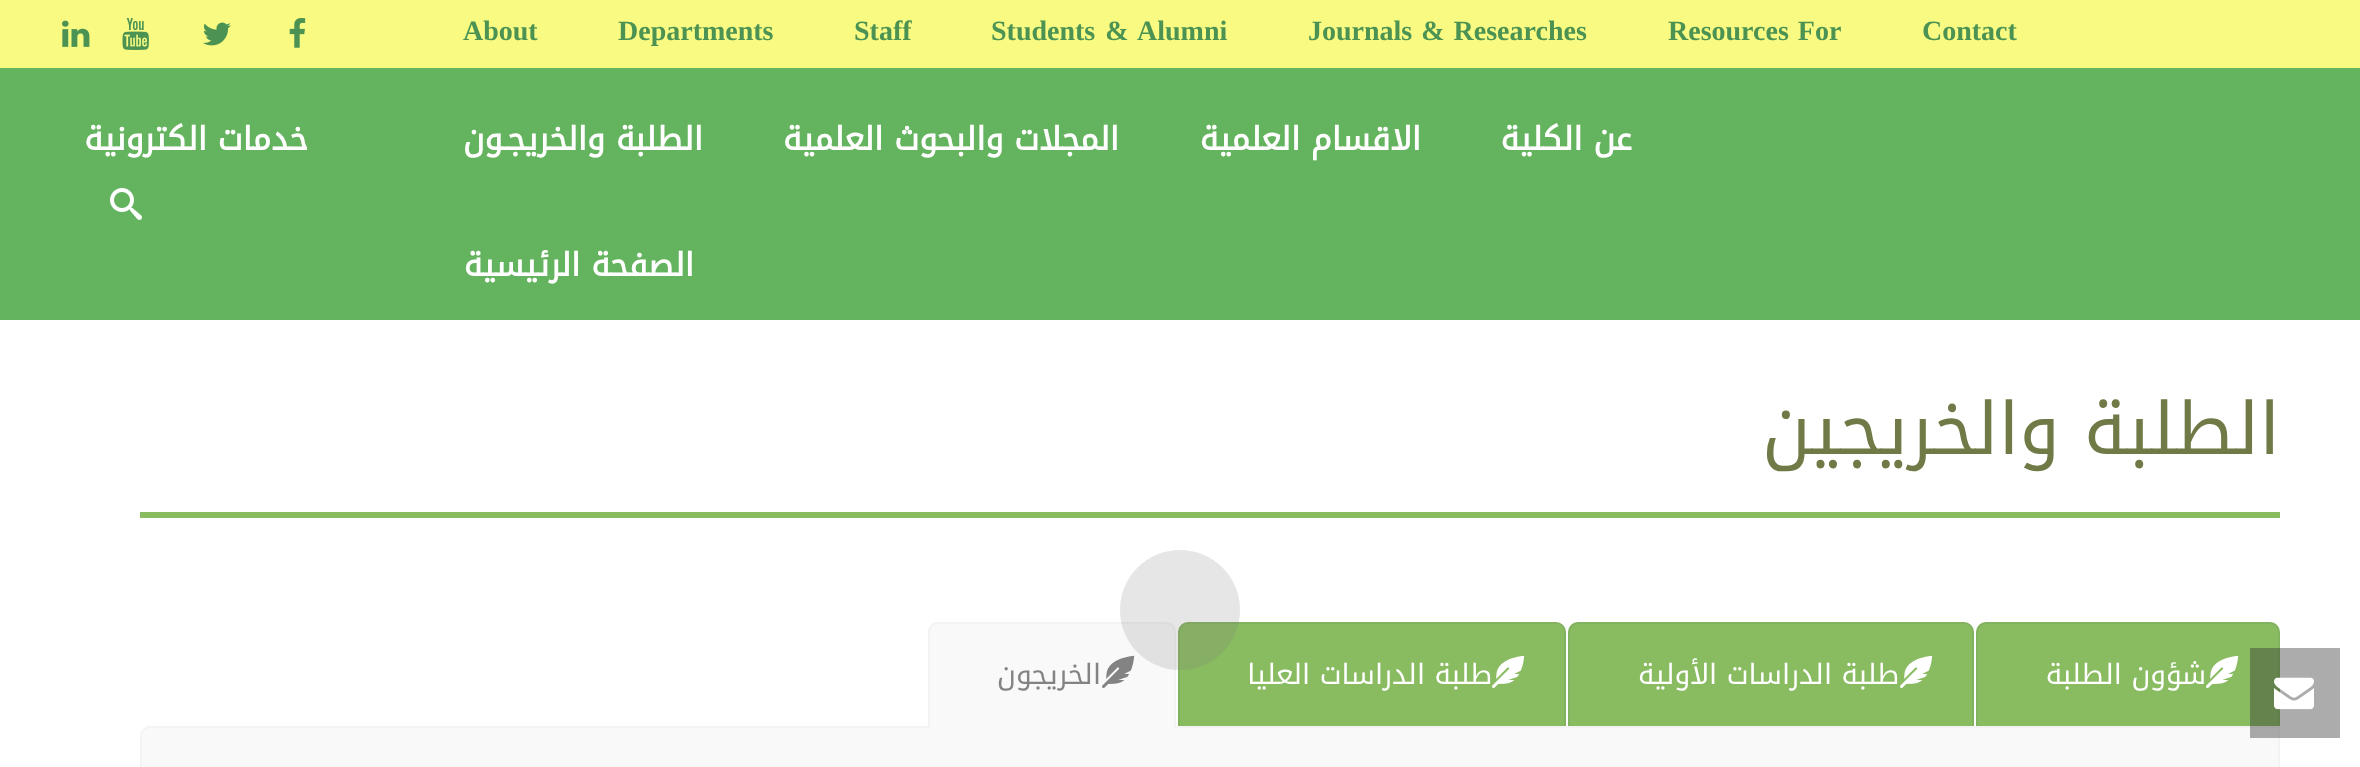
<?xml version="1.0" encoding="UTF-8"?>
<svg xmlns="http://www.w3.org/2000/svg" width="2360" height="767">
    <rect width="100%" height="100%" fill="#FFFFFF"/>
    <rect x="0" y="0" width="2360" height="68" fill="#F8FA81"/>
    <text x="1922" y="40" font-family="Liberation Serif" font-size="28" font-weight="700" fill="#4C9353">Contact</text>
    <text x="1668" y="40" word-spacing="2" font-family="Liberation Serif" font-size="28" font-weight="700" fill="#4C9353">Resources For</text>
    <text x="1308" y="40" word-spacing="2" font-family="Liberation Serif" font-size="28" font-weight="700" fill="#4C9353">Journals &amp; Researches</text>
    <text x="991" y="40" word-spacing="3" font-family="Liberation Serif" font-size="28" font-weight="700" fill="#4C9353">Students &amp; Alumni</text>
    <text x="854" y="40" font-family="Liberation Serif" font-size="28" font-weight="700" fill="#4C9353">Staff</text>
    <text x="618" y="40" font-family="Liberation Serif" font-size="28" font-weight="700" fill="#4C9353">Departments</text>
    <text x="463" y="40" font-family="Liberation Serif" font-size="28" font-weight="700" fill="#4C9353">About</text>
    <image x="289" y="18" width="17" height="30" href="img_01.png"/>
    <image x="203" y="22" width="28" height="24" href="img_02.png"/>
    <image x="122" y="18" width="27" height="32" href="img_03.png"/>
    <image x="62" y="20" width="28" height="27" href="img_04.png"/>
    <rect x="0" y="68" width="2360" height="252" fill="#64B35E"/>
    <text x="1632" y="150" font-family="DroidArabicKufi" font-size="32" font-weight="700" direction="rtl" fill="#FFFFFF">عن الكلية</text>
    <text x="1421" y="150" font-family="DroidArabicKufi" font-size="32" font-weight="700" direction="rtl" fill="#FFFFFF">الاقسام العلمية</text>
    <text x="1119" y="150" font-family="DroidArabicKufi" font-size="32" font-weight="700" direction="rtl" fill="#FFFFFF">المجلات والبحوث العلمية</text>
    <text x="703" y="150" font-family="DroidArabicKufi" font-size="32" font-weight="700" direction="rtl" fill="#FFFFFF">الطلبة والخريجـون</text>
    <text x="694" y="276" font-family="DroidArabicKufi" font-size="32" font-weight="700" direction="rtl" fill="#FFFFFF">الصفحة الرئيسية</text>
    <text x="308" y="150" font-family="DroidArabicKufi" font-size="32" font-weight="700" direction="rtl" fill="#FFFFFF">خدمات الكترونية</text>
    <image x="110" y="188" width="32" height="32" href="img_05.png"/>
    <text x="2280" y="454" font-family="DroidArabicKufi" font-size="72" direction="rtl" fill="#707A46">الطلبة والخريجين</text>
    <rect x="140" y="512" width="2140" height="6" fill="#89BB61"/>
    <path d="M 150 727 H 2279 V 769 C 2279 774 2275 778 2270 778 H 150 C 145 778 141 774 141 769 V 736 C 141 731 145 727 150 727 Z" fill="#F9F9F9" stroke="#F3F3F3" stroke-width="2"/>
    <path d="M 1986 623 H 2270 C 2275 623 2279 627 2279 632 V 727 H 1977 V 632 C 1977 627 1981 623 1986 623 Z" fill="#89BB61" stroke="#83B25E" stroke-width="2"/>
    <image x="2206" y="655" width="33" height="33" href="img_06.png"/>
    <text x="2206" y="684" font-family="DroidArabicKufi" font-size="28" direction="rtl" fill="#FFFFFF">شؤون الطلبة</text>
    <path d="M 1578 623 H 1964 C 1969 623 1973 627 1973 632 V 727 H 1569 V 632 C 1569 627 1573 623 1578 623 Z" fill="#89BB61" stroke="#83B25E" stroke-width="2"/>
    <image x="1900" y="655" width="33" height="33" href="img_06.png"/>
    <text x="1899" y="684" font-family="DroidArabicKufi" font-size="28" direction="rtl" fill="#FFFFFF">طلبة الدراسات الأولية</text>
    <path d="M 1188 623 H 1556 C 1561 623 1565 627 1565 632 V 727 H 1179 V 632 C 1179 627 1183 623 1188 623 Z" fill="#89BB61" stroke="#83B25E" stroke-width="2"/>
    <image x="1492" y="655" width="33" height="33" href="img_06.png"/>
    <text x="1492" y="684" font-family="DroidArabicKufi" font-size="28" direction="rtl" fill="#FFFFFF">طلبة الدراسات العليا</text>
    <path d="M 938 622 H 1166 C 1171.5 622 1176 626.5 1176 632 V 728 H 928 V 632 C 928 626.5 932.5 622 938 622 Z" fill="#F9F9F9"/>
    <path d="M 938 622 C 935 622 932 623 931 625 L 932 626 C 934 625 936 624 938 624 H 1166 C 1168 624 1170 625 1172 626 L 1173 625 C 1172 623 1169 622 1166 622 Z" fill="#F3F3F3"/>
    <path d="M 1176 728 V 632 C 1176 629 1175 626 1173 625 L 1172 626 L 1174 631 V 726 Z" fill="#F3F3F3"/>
    <path d="M 928 728 L 930 726 V 631 L 932 626 L 931 625 C 929 626 928 629 928 632 Z" fill="#F3F3F3"/>
    <image x="1102" y="655" width="33" height="33" href="img_07.png"/>
    <text x="1101" y="684" font-family="DroidArabicKufi" font-size="28" direction="rtl" fill="#838383">الخريجون</text>
    <rect x="1174" y="726" width="1106" height="2" fill="#F3F3F3"/>
    <rect x="928" y="726" width="2" height="2" fill="#F3F3F3"/>
    <circle cx="1180" cy="610" r="60" fill="#7C7C7C" fill-opacity="0.19"/>
    <rect x="2250" y="648" width="90" height="90" fill="#303030" fill-opacity="0.4"/>
    <image x="2274" y="677" width="40" height="33" href="img_08.png"/>
</svg>
